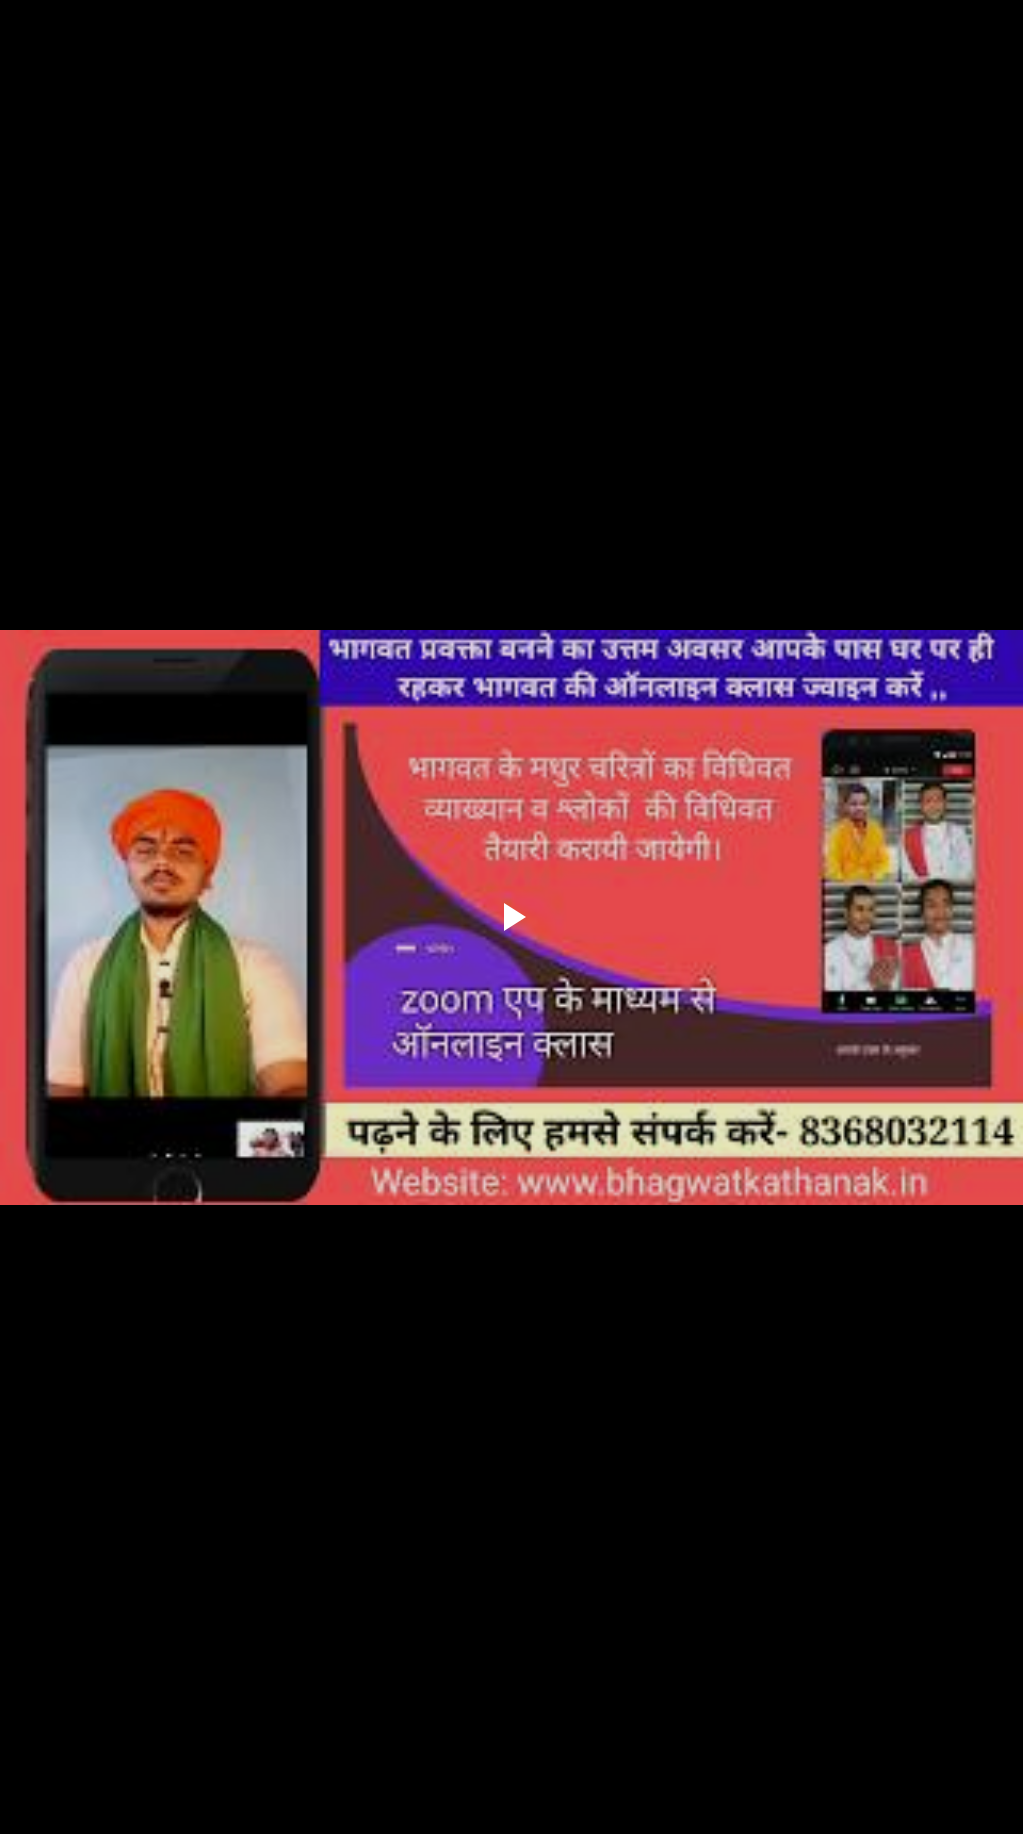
<?xml version="1.0" encoding="UTF-8"?>
<svg xmlns="http://www.w3.org/2000/svg" width="1023" height="1834">
    <rect width="100%" height="100%" fill="#000000"/>
    <image x="0" y="630" width="1023" height="575" href="img_01.png"/>
    <image x="504" y="903" width="22" height="28" href="img_02.png"/>
</svg>
